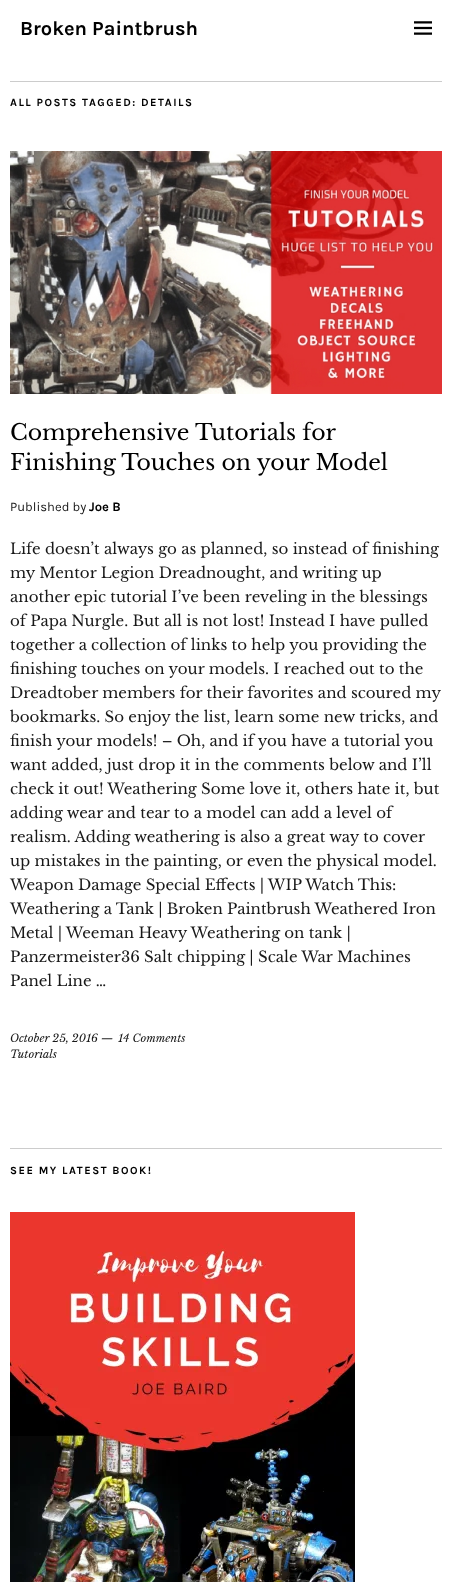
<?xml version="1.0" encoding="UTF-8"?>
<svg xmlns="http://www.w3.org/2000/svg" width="452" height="1582">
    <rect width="100%" height="100%" fill="#FFFFFF"/>
    <text x="20" y="35" font-family="Karla" font-size="20" font-weight="700" fill="#000000">Broken Paintbrush</text>
    <image x="414" y="21" width="18" height="14" href="img_01.png"/>
    <rect x="10" y="81" width="432" height="1" fill="#CCCCCC"/>
    <text x="10" y="106" font-family="Karla" font-size="11" font-weight="700" letter-spacing="1.5" fill="#000000">ALL POSTS TAGGED: DETAILS</text>
    <image x="10" y="151" width="432" height="243" href="img_02.png"/>
    <text font-family="Libre Baskerville" font-size="22" fill="#000000">
        <tspan x="10" y="440">Comprehensive Tutorials for</tspan>
        <tspan x="10" y="470">Finishing Touches on your Model</tspan>
    </text>
    <text x="10" y="511" font-family="Karla" font-size="13" fill="#191919">Published by</text>
    <text x="89" y="511" font-family="Karla" font-size="13" font-weight="700" fill="#000000">Joe B</text>
    <text font-family="Libre Baskerville" font-size="15" fill="#191919">
        <tspan x="10" y="554">Life doesn’t always go as planned, so instead of finishing</tspan>
        <tspan x="10" y="578">my Mentor Legion Dreadnought, and writing up</tspan>
        <tspan x="10" y="602">another epic tutorial I’ve been reveling in the blessings</tspan>
        <tspan x="10" y="626">of Papa Nurgle. But all is not lost! Instead I have pulled</tspan>
        <tspan x="10" y="650">together a collection of links to help you providing the</tspan>
        <tspan x="10" y="674">finishing touches on your models. I reached out to the</tspan>
        <tspan x="10" y="698">Dreadtober members for their favorites and scoured my</tspan>
        <tspan x="10" y="722">bookmarks. So enjoy the list, learn some new tricks, and</tspan>
        <tspan x="10" y="746">finish your models! – Oh, and if you have a tutorial you</tspan>
        <tspan x="10" y="770">want added, just drop it in the comments below and I’ll</tspan>
        <tspan x="10" y="794">check it out! Weathering Some love it, others hate it, but</tspan>
        <tspan x="10" y="818">adding wear and tear to a model can add a level of</tspan>
        <tspan x="10" y="842">realism. Adding weathering is also a great way to cover</tspan>
        <tspan x="10" y="866">up mistakes in the painting, or even the physical model.</tspan>
        <tspan x="10" y="890">Weapon Damage Special Effects | WIP Watch This:</tspan>
        <tspan x="10" y="914">Weathering a Tank | Broken Paintbrush Weathered Iron</tspan>
        <tspan x="10" y="938">Metal | Weeman Heavy Weathering on tank |</tspan>
        <tspan x="10" y="962">Panzermeister36 Salt chipping | Scale War Machines</tspan>
        <tspan x="10" y="986">Panel Line …</tspan>
    </text>
    <text x="10" y="1042" font-family="Libre Baskerville" font-size="11" font-style="italic" fill="#191919">October 25, 2016 —</text>
    <text x="118" y="1042" font-family="Libre Baskerville" font-size="11" font-style="italic" fill="#191919">14 Comments</text>
    <text x="10" y="1058" font-family="Libre Baskerville" font-size="11" font-style="italic" fill="#191919">Tutorials</text>
    <rect x="10" y="1148" width="432" height="1" fill="#CCCCCC"/>
    <text x="10" y="1174" font-family="Karla" font-size="11" font-weight="700" letter-spacing="1.5" fill="#000000">SEE MY LATEST BOOK!</text>
    <image x="10" y="1212" width="345" height="370" href="img_03.png"/>
</svg>
